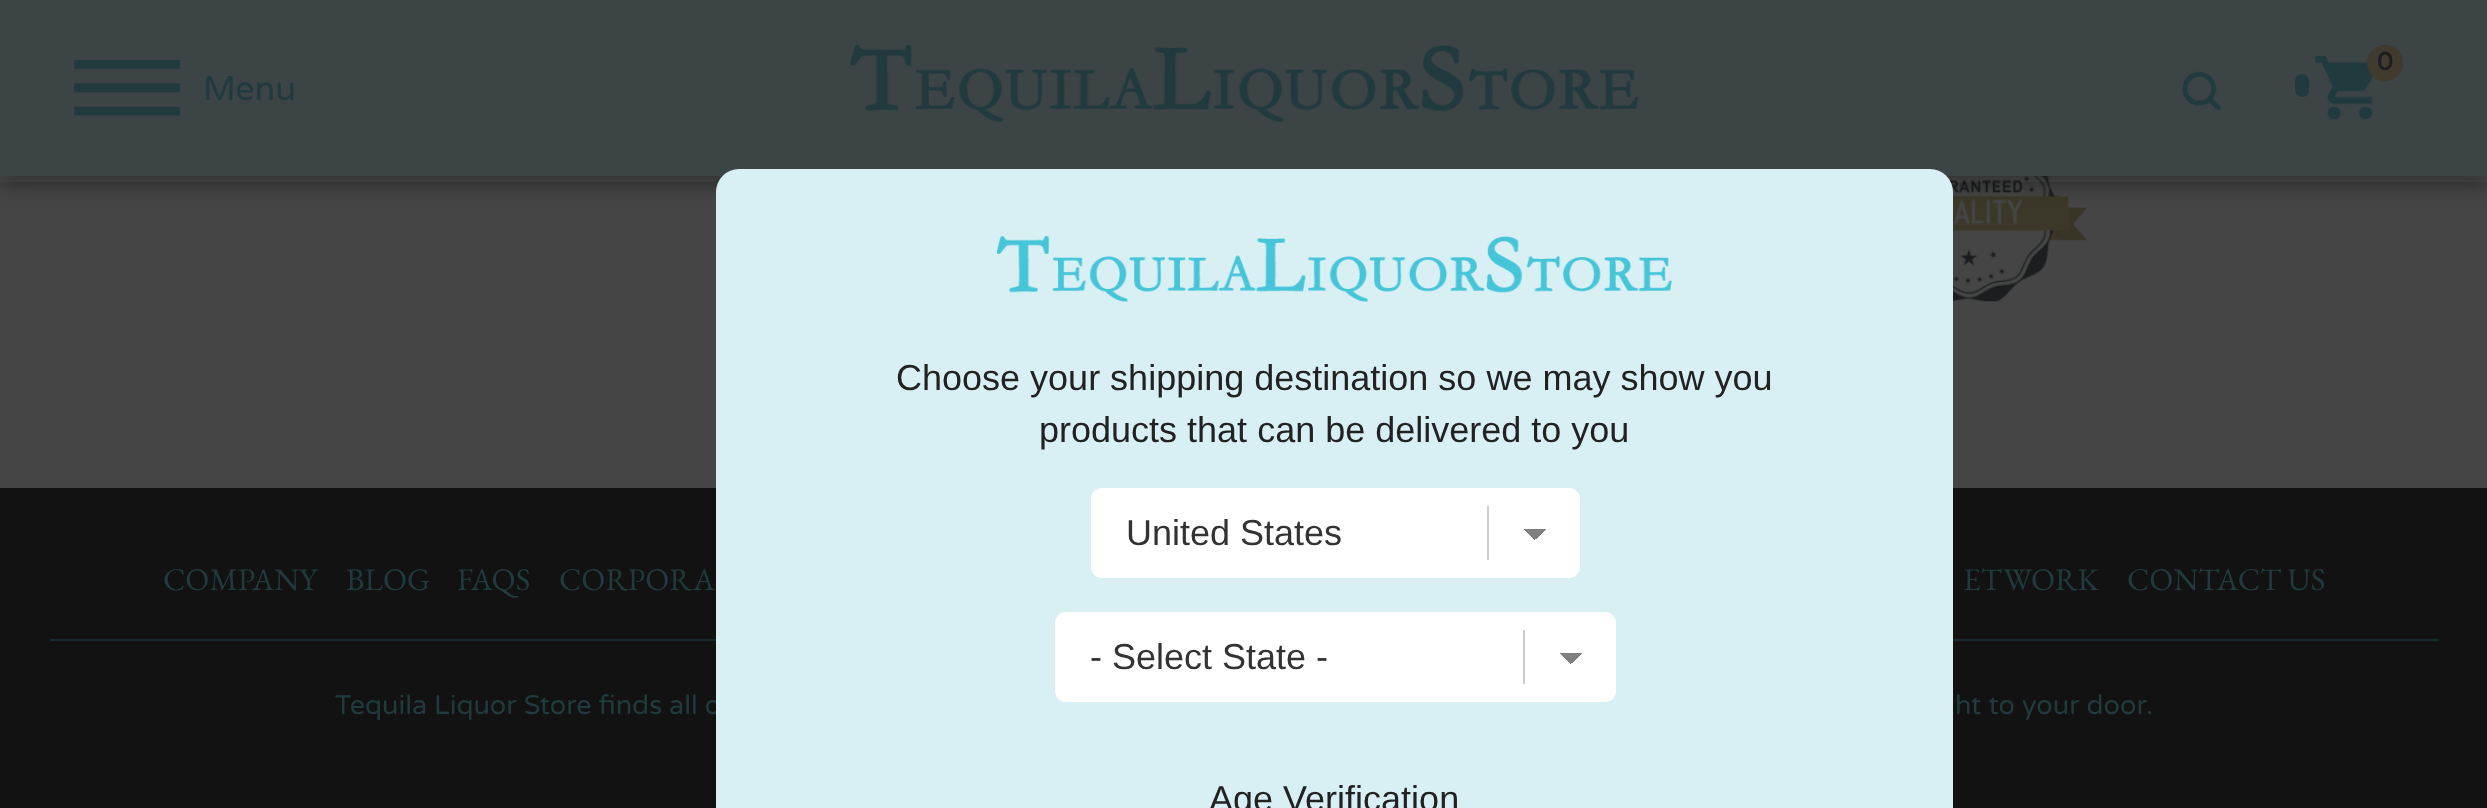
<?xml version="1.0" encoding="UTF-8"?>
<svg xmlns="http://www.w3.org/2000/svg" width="2487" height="808">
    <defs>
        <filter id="blur1" x="-50%" y="-200%" width="200%" height="500%"><feGaussianBlur stdDeviation="11"/></filter>
        <linearGradient id="g1" gradientUnits="userSpaceOnUse" x1="1535" y1="529" x2="1546" y2="540"><stop offset="0.5" stop-color="#808080"/><stop offset="0.5" stop-color="#FFFFFF"/></linearGradient>
        <linearGradient id="g2" gradientUnits="userSpaceOnUse" x1="1523" y1="540" x2="1535" y2="529"><stop offset="0.5" stop-color="#FFFFFF"/><stop offset="0.5" stop-color="#808080"/></linearGradient>
        <linearGradient id="g3" gradientUnits="userSpaceOnUse" x1="1571" y1="653" x2="1582" y2="664"><stop offset="0.5" stop-color="#808080"/><stop offset="0.5" stop-color="#FFFFFF"/></linearGradient>
        <linearGradient id="g4" gradientUnits="userSpaceOnUse" x1="1559" y1="664" x2="1571" y2="653"><stop offset="0.5" stop-color="#FFFFFF"/><stop offset="0.5" stop-color="#808080"/></linearGradient>
    </defs>
    <rect width="100%" height="100%" fill="#454545"/>
    <image x="1946" y="176" width="141" height="126" href="img_05.png"/>
    <rect x="0" y="7" width="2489" height="175" fill="#121212" fill-opacity="0.5" filter="url(#blur1)"/>
    <rect x="0" y="0" width="2487" height="176" fill="#3C4445"/>
    <image x="850" y="45" width="788" height="77" href="img_01.png"/>
    <image x="2315" y="56" width="59" height="64" href="img_02.png"/>
    <circle cx="2385" cy="63" r="18" fill="#413A2E"/>
    <text x="2377" y="70" font-family="Varela Round" font-size="25" font-weight="700" fill="#1C1D1D">0</text>
    <image x="2182" y="71" width="40" height="40" href="img_03.png"/>
    <rect x="2295" y="74" width="14" height="23" rx="7" fill="#203A3E"/>
    <image x="74" y="60" width="106" height="56" href="img_04.png"/>
    <text x="203" y="100" font-family="Varela Round" font-size="34" fill="#203A3E">Menu</text>
    <rect x="0" y="488" width="2487" height="320" fill="#121212"/>
    <rect x="50" y="639" width="2389" height="2" fill="#172A2D"/>
    <text x="335" y="714" font-family="Varela Round" font-size="27" fill="#203A3E">Tequila Liquor Store finds all o</text>
    <rect x="716" y="169" width="1237" height="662" rx="23" fill="#D8F0F4"/>
    <image x="997" y="236" width="675" height="66" href="img_06.png"/>
    <text x="896" y="390" font-family="Liberation Sans" font-size="36" fill="#222222">Choose your shipping destination so we may show you</text>
    <text x="1039" y="442" font-family="Liberation Sans" font-size="36" fill="#222222">products that can be delivered to you</text>
    <rect x="1091" y="488" width="489" height="90" rx="11" fill="#FFFFFF"/>
    <rect x="1487" y="506" width="2" height="54" fill="#CCCCCC"/>
    <rect x="1535" y="529" width="11" height="10" fill="url(#g1)"/>
    <rect x="1524" y="529" width="11" height="11" fill="url(#g2)"/>
    <text x="1126" y="545" font-family="Liberation Sans" font-size="36" fill="#333333">United States</text>
    <rect x="1055" y="612" width="561" height="90" rx="11" fill="#FFFFFF"/>
    <rect x="1523" y="630" width="2" height="54" fill="#CCCCCC"/>
    <rect x="1571" y="653" width="11" height="10" fill="url(#g3)"/>
    <rect x="1560" y="653" width="11" height="11" fill="url(#g4)"/>
    <text x="1090" y="669" font-family="Liberation Sans" font-size="36" fill="#333333">- Select State -</text>
    <text x="1209" y="811" font-family="Liberation Sans" font-size="36" fill="#222222">Age Verification</text>
    <text x="163" y="590" font-family="EB Garamond" font-size="31.5" fill="#203A3E">COMPANY</text>
    <text x="346" y="590" font-family="EB Garamond" font-size="31.5" fill="#203A3E">BLOG</text>
    <text x="457" y="590" font-family="EB Garamond" font-size="31.5" fill="#203A3E">FAQS</text>
    <text x="559" y="590" font-family="EB Garamond" font-size="31.5" fill="#203A3E">CORPORA</text>
    <text x="1963" y="590" font-family="EB Garamond" font-size="31.5" fill="#203A3E">ETWORK</text>
    <text x="2127" y="590" font-family="EB Garamond" font-size="31.5" fill="#203A3E">CONTACT US</text>
    <text x="1955" y="714" font-family="Varela Round" font-size="27" fill="#203A3E">ht to your door.</text>
</svg>
